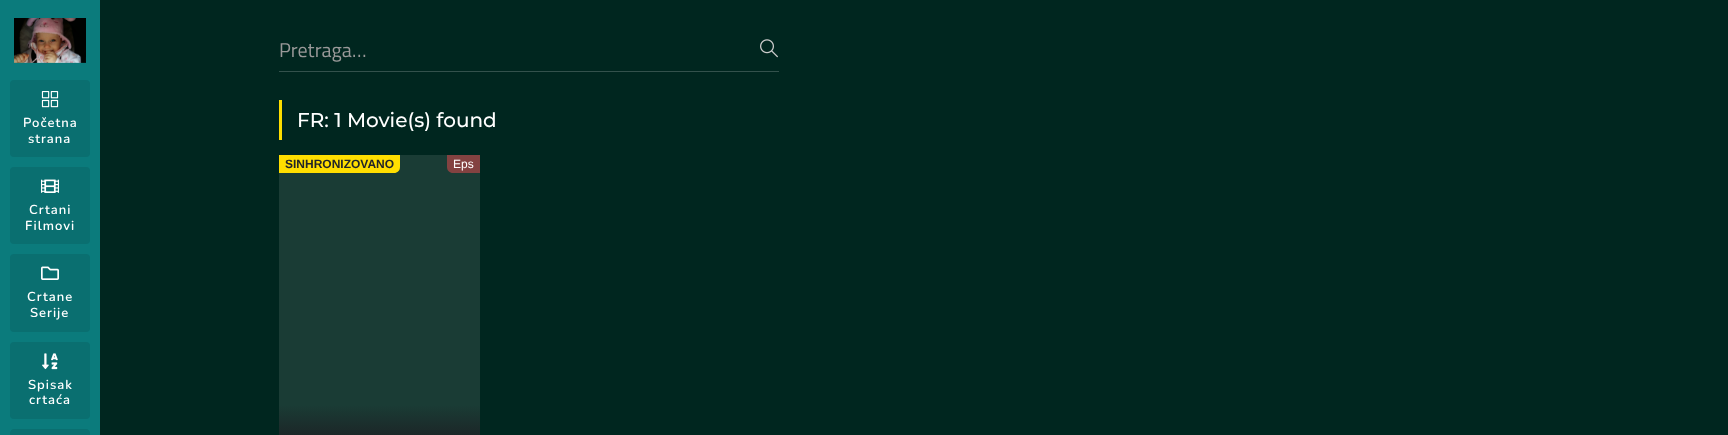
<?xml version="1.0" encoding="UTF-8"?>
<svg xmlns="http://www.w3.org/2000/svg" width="1728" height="435">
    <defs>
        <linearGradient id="g1" gradientUnits="userSpaceOnUse" x1="380" y1="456" x2="380" y2="405"><stop offset="0" stop-color="#1D181F"/><stop offset="1" stop-color="#1A3C35"/></linearGradient>
    </defs>
    <rect width="100%" height="100%" fill="#00261F"/>
    <rect x="0" y="0" width="100" height="435" fill="#0B7B7C"/>
    <image x="14" y="18" width="72" height="45" href="img_01.png"/>
    <rect x="279" y="71" width="500" height="1" fill="#33514C"/>
    <text x="279" y="57" font-family="Titillium Web" font-size="20" fill="#999999">Pretraga…</text>
    <image x="760" y="39" width="18" height="19" href="img_02.png"/>
    <rect x="10" y="80" width="80" height="77" rx="4" fill="#0A6F70"/>
    <image x="41" y="91" width="18" height="17" href="img_03.png"/>
    <text x="23" y="127" font-family="Nunito" font-size="13" font-weight="600" letter-spacing="1" fill="#FFFFFF">Početna</text>
    <text x="28" y="143" font-family="Nunito" font-size="13" font-weight="600" letter-spacing="1" fill="#FFFFFF">strana</text>
    <rect x="10" y="167" width="80" height="77" rx="4" fill="#0A6F70"/>
    <image x="41" y="179" width="18" height="14" href="img_04.png"/>
    <text x="29" y="214" font-family="Nunito" font-size="13" font-weight="600" letter-spacing="1" fill="#FFFFFF">Crtani</text>
    <text x="25" y="230" font-family="Nunito" font-size="13" font-weight="600" letter-spacing="1" fill="#FFFFFF">Filmovi</text>
    <rect x="10" y="254" width="80" height="78" rx="4" fill="#0A6F70"/>
    <image x="41" y="266" width="18" height="14" href="img_05.png"/>
    <text x="27" y="301" font-family="Nunito" font-size="13" font-weight="600" letter-spacing="1" fill="#FFFFFF">Crtane</text>
    <text x="30" y="317" font-family="Nunito" font-size="13" font-weight="600" letter-spacing="1" fill="#FFFFFF">Serije</text>
    <rect x="10" y="342" width="80" height="77" rx="4" fill="#0A6F70"/>
    <image x="42" y="353" width="16" height="17" href="img_06.png"/>
    <text x="28" y="389" font-family="Nunito" font-size="13" font-weight="600" letter-spacing="1" fill="#FFFFFF">Spisak</text>
    <text x="29" y="404" font-family="Nunito" font-size="13" font-weight="600" letter-spacing="1" fill="#FFFFFF">crtaća</text>
    <path d="M 14 429 H 86 C 88 429 90 431 90 433 V 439 H 10 V 433 C 10 431 12 429 14 429 Z" fill="#0A6F70"/>
    <rect x="279" y="100" width="3" height="40" fill="#FFDE00"/>
    <text x="297" y="127" font-family="Montserrat" font-size="20" font-weight="500" fill="#FFFFFF">FR: 1 Movie(s) found</text>
    <rect x="279" y="155" width="201" height="250" fill="#1A3C35"/>
    <path d="M 279 155 H 400 V 167 C 400 170.5 397.5 173 394 173 H 279 Z" fill="#FFDE00"/>
    <text x="285" y="168" font-family="Liberation Sans" font-size="12" font-weight="700" fill="#212529">SINHRONIZOVANO</text>
    <path d="M 447 155 H 480 V 173 H 453 C 449.5 173 447 170.5 447 167 Z" fill="#834241"/>
    <text x="453" y="168" font-family="Liberation Sans" font-size="12" fill="#FFFFFF">Eps</text>
    <rect x="279" y="405" width="201" height="30" fill="url(#g1)"/>
</svg>
